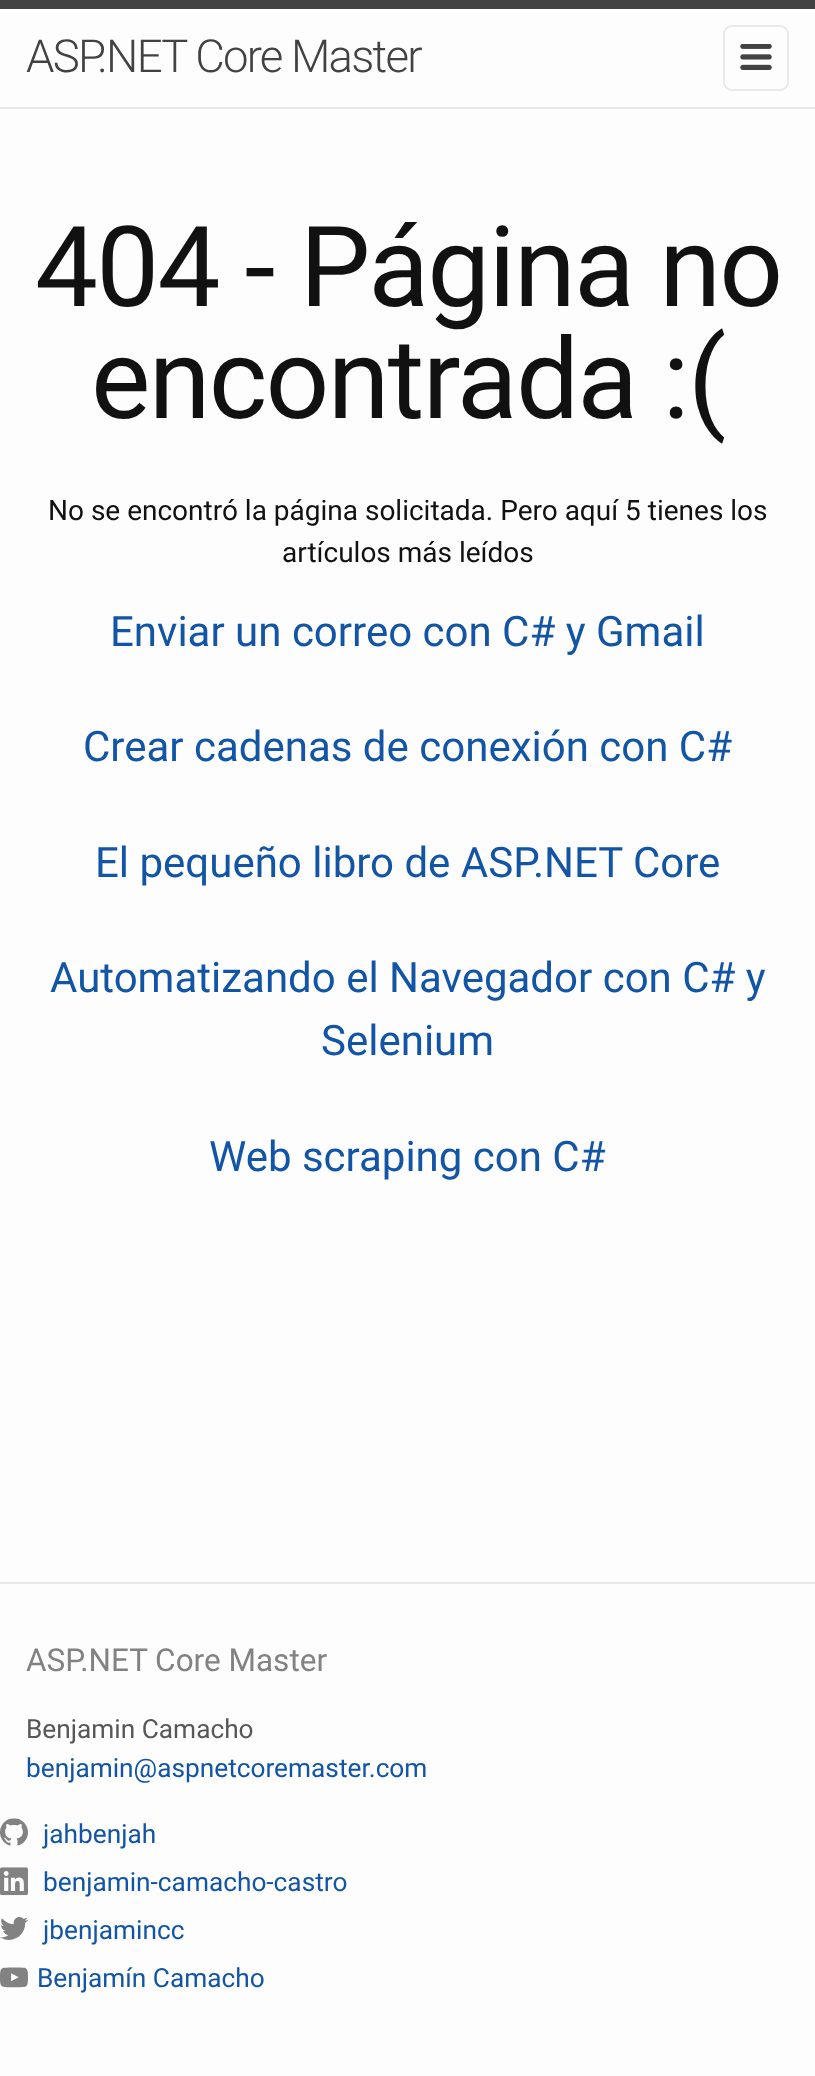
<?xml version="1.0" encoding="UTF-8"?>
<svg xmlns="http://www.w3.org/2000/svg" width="815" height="2076">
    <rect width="100%" height="100%" fill="#FDFDFD"/>
    <rect x="0" y="0" width="815" height="9" fill="#424242"/>
    <rect x="0" y="107" width="815" height="2" fill="#E8E8E8"/>
    <text x="26" y="72" font-family="Roboto" font-size="45.5" font-weight="300" letter-spacing="-1.75" fill="#424242">ASP.NET Core Master</text>
    <rect x="724" y="26" width="64" height="64" rx="8" fill="none" stroke="#E8E8E8" stroke-width="2"/>
    <image x="740" y="44" width="32" height="26" href="img_01.png"/>
    <text x="35" y="306" font-family="Roboto" font-size="112" letter-spacing="-1.75" fill="#111111">404 - Página no</text>
    <text x="91" y="418" font-family="Roboto" font-size="112" letter-spacing="-1.75" fill="#111111">encontrada :(</text>
    <text x="48" y="520" font-family="Roboto" font-size="28" fill="#111111">No se encontró la página solicitada. Pero aquí 5 tienes los</text>
    <text x="282" y="562" font-family="Roboto" font-size="28" fill="#111111">artículos más leídos</text>
    <text x="110" y="646" font-family="Roboto" font-size="42" fill="#1255A6">Enviar un correo con C# y Gmail</text>
    <text x="83" y="761" font-family="Roboto" font-size="42" fill="#1255A6">Crear cadenas de conexión con C#</text>
    <text x="95" y="877" font-family="Roboto" font-size="42" fill="#1255A6">El pequeño libro de ASP.NET Core</text>
    <text x="50" y="992" font-family="Roboto" font-size="42" fill="#1255A6">Automatizando el Navegador con C# y</text>
    <text x="321" y="1055" font-family="Roboto" font-size="42" fill="#1255A6">Selenium</text>
    <text x="209" y="1171" font-family="Roboto" font-size="42" fill="#1255A6">Web scraping con C#</text>
    <rect x="0" y="1582" width="815" height="2" fill="#E8E8E8"/>
    <text x="26" y="1671" font-family="Roboto" font-size="31.5" fill="#828282">ASP.NET Core Master</text>
    <text x="26" y="1738" font-family="Roboto" font-size="26.25" fill="#575757">Benjamin Camacho</text>
    <text x="26" y="1777" font-family="Roboto" font-size="26.25" fill="#1255A6">benjamin@aspnetcoremaster.com</text>
    <image x="0" y="1818" width="28" height="28" href="img_02.png"/>
    <text x="43" y="1843" font-family="Roboto" font-size="26.25" fill="#1255A6">jahbenjah</text>
    <image x="0" y="1867" width="28" height="29" href="img_03.png"/>
    <text x="43" y="1891" font-family="Roboto" font-size="26.25" fill="#1255A6">benjamin-camacho-castro</text>
    <image x="0" y="1917" width="28" height="23" href="img_04.png"/>
    <text x="43" y="1939" font-family="Roboto" font-size="26.25" fill="#1255A6">jbenjamincc</text>
    <image x="0" y="1967" width="28" height="21" href="img_05.png"/>
    <text x="37" y="1987" font-family="Roboto" font-size="26.25" fill="#1255A6">Benjamín Camacho</text>
</svg>
